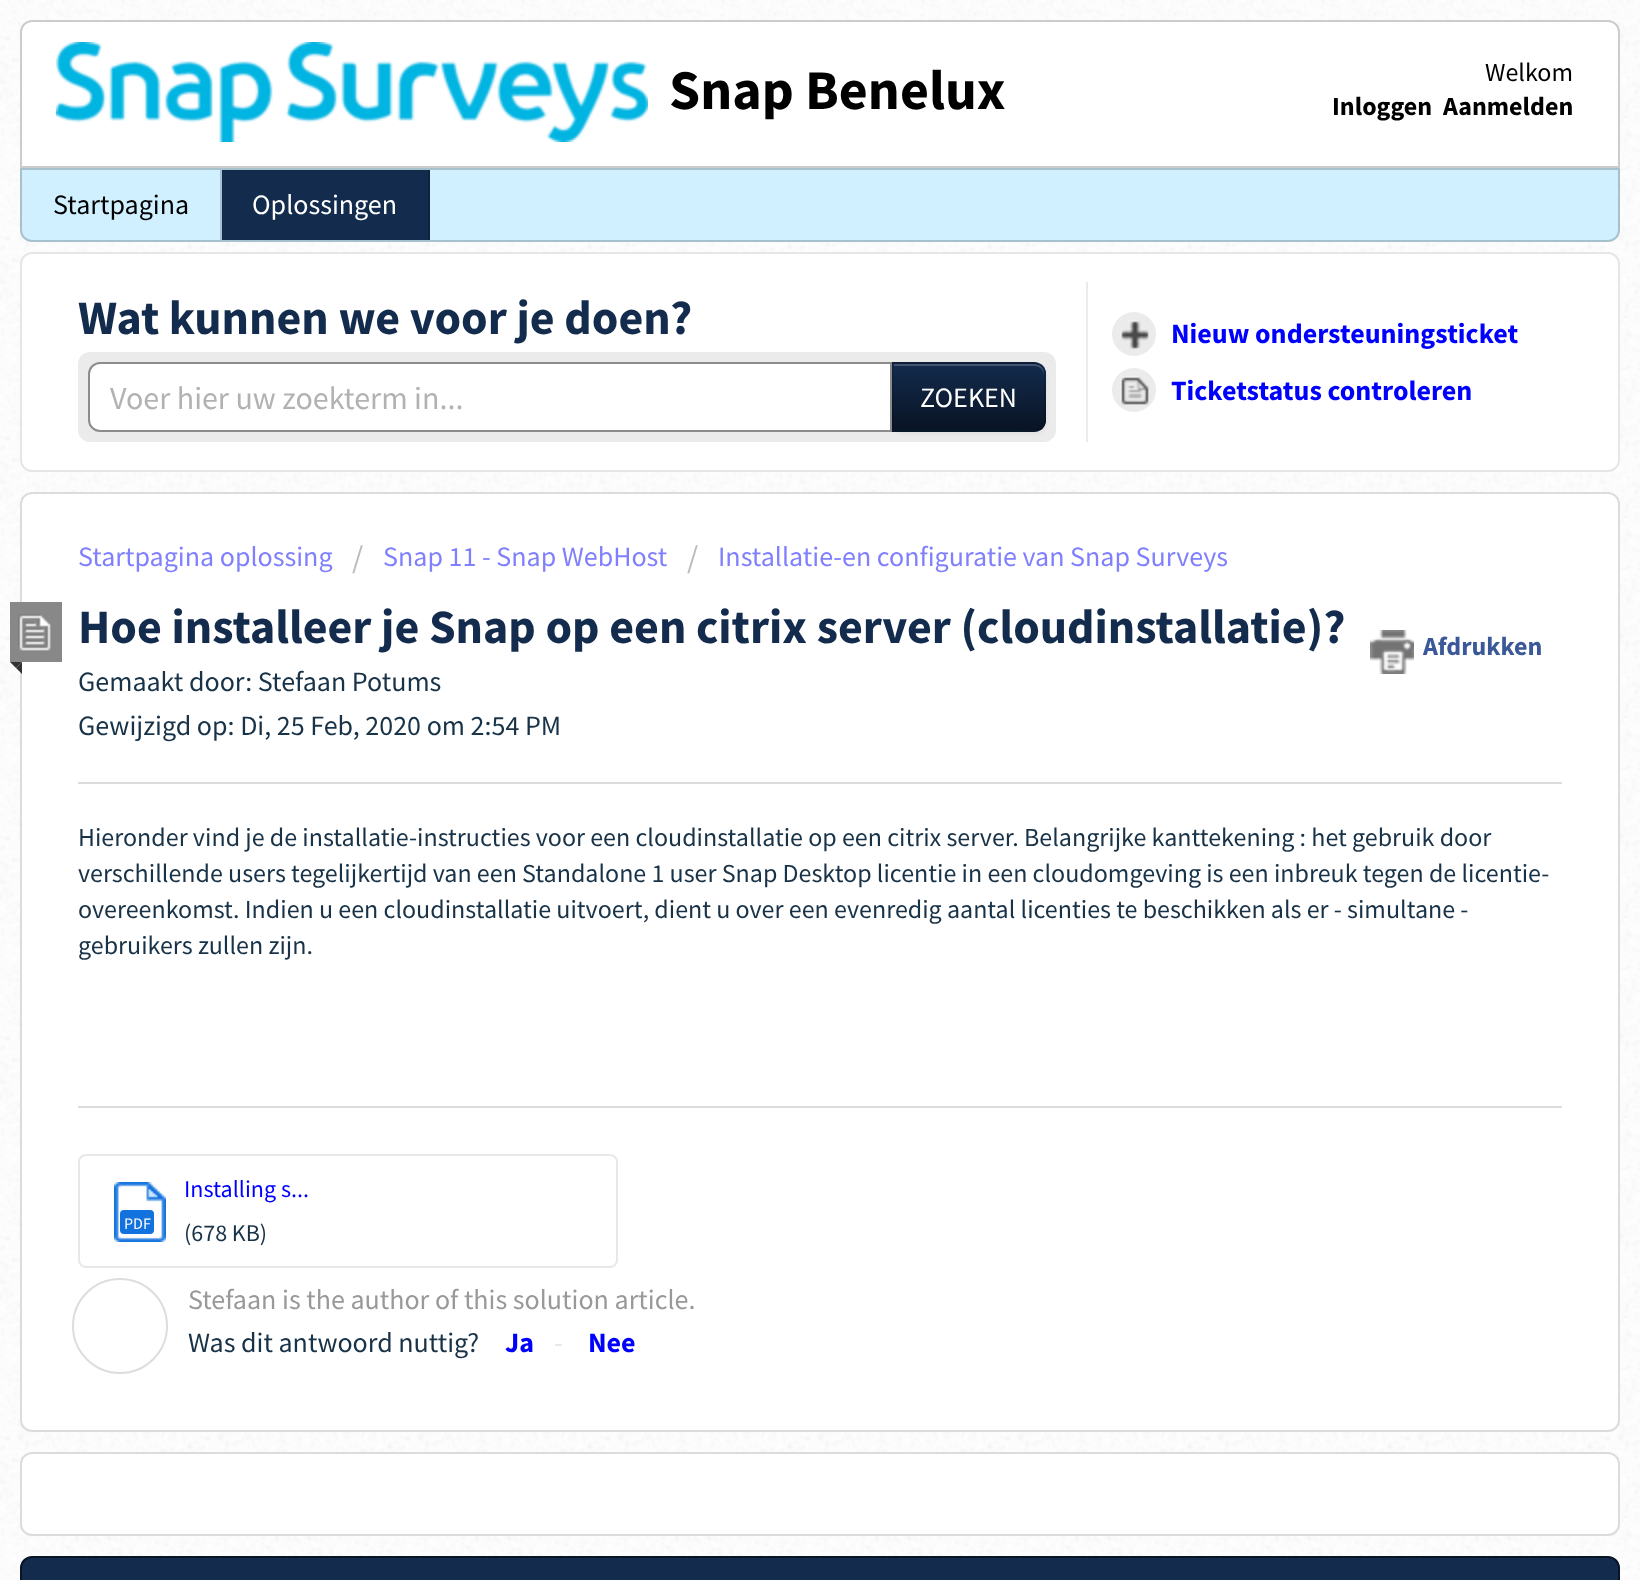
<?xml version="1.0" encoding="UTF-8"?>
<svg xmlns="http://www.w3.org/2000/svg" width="1640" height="1580">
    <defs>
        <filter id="blur1" x="-50%" y="-200%" width="200%" height="500%"><feGaussianBlur stdDeviation="2"/></filter>
        <clipPath id="clip1"><path d="M 892 362 H 1034 C 1040.5 362 1046 367.5 1046 374 V 420 C 1046 426.5 1040.5 432 1034 432 H 892 Z"/></clipPath>
        <linearGradient id="g1" gradientUnits="userSpaceOnUse" x1="969" y1="364" x2="969" y2="430"><stop offset="0" stop-color="#132B4D"/><stop offset="1" stop-color="#091424"/></linearGradient>
    </defs>
    <rect width="100%" height="100%" fill="#FFFFFF"/>
    <image x="0" y="0" width="1640" height="1580" href="img_01.png"/>
    <path d="M 32 21 H 1608 C 1614 21 1619 26 1619 32 V 167 H 21 V 32 C 21 26 26 21 32 21 Z" fill="#FFFFFF" stroke="#CCCCCC" stroke-width="2"/>
    <image x="56" y="42" width="592" height="100" href="img_02.png"/>
    <text x="669" y="109" font-family="Source Sans Pro" font-size="56" font-weight="700" fill="#000000">Snap Benelux</text>
    <text x="1485" y="81" font-family="Source Sans Pro" font-size="26" fill="#000000">Welkom</text>
    <text x="1332" y="115" font-family="Source Sans Pro" font-size="26" font-weight="700" fill="#000000">Inloggen</text>
    <text x="1443" y="115" font-family="Source Sans Pro" font-size="26" font-weight="700" fill="#000000">Aanmelden</text>
    <path d="M 20 168 H 1620 V 230 C 1620 236.5 1614.5 242 1608 242 H 32 C 25.5 242 20 236.5 20 230 Z" fill="#D0F0FF"/>
    <path d="M 21 169 H 1619 V 230 C 1619 236 1614 241 1608 241 H 32 C 26 241 21 236 21 230 Z" fill="none" stroke="#000000" stroke-opacity="0.2" stroke-width="2"/>
    <rect x="220" y="170" width="2" height="70" fill="#A6C0CC"/>
    <text x="53" y="214" font-family="Source Sans Pro" font-size="28" fill="#000000">Startpagina</text>
    <rect x="222" y="170" width="206" height="70" fill="#132B4D"/>
    <rect x="428" y="170" width="2" height="70" fill="#0F223E"/>
    <text x="252" y="214" font-family="Source Sans Pro" font-size="28" fill="#FFFFFF">Oplossingen</text>
    <rect x="21" y="253" width="1598" height="218" rx="11" fill="#FFFFFF" stroke="#E6E6E6" stroke-width="2"/>
    <rect x="1086" y="282" width="2" height="160" fill="#EBEBEB"/>
    <text x="78" y="334" font-family="Source Sans Pro" font-size="48" font-weight="700" fill="#132B4D">Wat kunnen we voor je doen?</text>
    <rect x="78" y="352" width="978" height="90" rx="12" fill="#EBEBEB"/>
    <path d="M 100 363 H 891 V 431 H 100 C 94 431 89 426 89 420 V 374 C 89 368 94 363 100 363 Z" fill="#FFFFFF" stroke="#8C8C8C" stroke-width="2"/>
    <text x="110" y="409" font-family="Source Sans Pro" font-size="32" fill="#B2B2B2">Voer hier uw zoekterm in...</text>
    <rect x="892" y="364" width="154" height="70" rx="12" fill="#000000" fill-opacity="0.05" filter="url(#blur1)"/>
    <path d="M 892 362 H 1034 C 1040.5 362 1046 367.5 1046 374 V 420 C 1046 426.5 1040.5 432 1034 432 H 892 Z" fill="#0F223D"/>
    <g clip-path="url(#clip1)">
        <rect x="892" y="364" width="154" height="66" fill="url(#g1)"/>
    </g>
    <path d="M 894 366 H 1034 C 1040 366 1044 370 1044 376 V 374 C 1044 368 1040 364 1034 364 H 894 Z" fill="#FFFFFF" fill-opacity="0.2"/>
    <path d="M 892 362 L 894 364 H 1034 C 1037 364 1040 365 1041 367 L 1043 365 C 1040 363 1038 362 1034 362 Z" fill="#000000" fill-opacity="0.1"/>
    <path d="M 1046 420 V 374 C 1046 370 1045 368 1043 365 L 1041 367 C 1043 368 1044 371 1044 374 V 420 C 1044 423 1043 426 1041 427 L 1043 429 C 1045 426 1046 424 1046 420 Z" fill="#000000" fill-opacity="0.1"/>
    <path d="M 1034 432 C 1038 432 1040 431 1043 429 L 1041 427 C 1040 429 1037 430 1034 430 H 894 L 892 432 Z" fill="#000000" fill-opacity="0.25"/>
    <path d="M 892 362 V 432 L 894 430 V 364 Z" fill="#000000" fill-opacity="0.1"/>
    <text x="920" y="407" font-family="Source Sans Pro" font-size="28" fill="#FFFFFF">ZOEKEN</text>
    <circle cx="1134" cy="334" r="22" fill="#EBEBEB"/>
    <image x="1120" y="320" width="29" height="29" href="img_03.png"/>
    <text x="1171" y="343" font-family="Source Sans Pro" font-size="28" font-weight="700" fill="#0000FF">Nieuw ondersteuningsticket</text>
    <circle cx="1134" cy="390" r="22" fill="#EBEBEB"/>
    <image x="1120" y="376" width="29" height="29" href="img_04.png"/>
    <text x="1171" y="400" font-family="Source Sans Pro" font-size="28" font-weight="700" fill="#0000FF">Ticketstatus controleren</text>
    <rect x="21" y="493" width="1598" height="938" rx="11" fill="#FFFFFF" stroke="#DCDCDC" stroke-width="2"/>
    <text x="78" y="566" font-family="Source Sans Pro" font-size="28" fill="#8080FF">Startpagina oplossing</text>
    <text x="352" y="568" font-family="Source Sans Pro" font-size="32" fill="#BBBBBB">/</text>
    <text x="383" y="566" font-family="Source Sans Pro" font-size="28" fill="#8080FF">Snap 11 - Snap WebHost</text>
    <text x="687" y="568" font-family="Source Sans Pro" font-size="32" fill="#BBBBBB">/</text>
    <text x="718" y="566" font-family="Source Sans Pro" font-size="28" fill="#8080FF">Installatie-en configuratie van Snap Surveys</text>
    <rect x="10" y="602" width="52" height="60" fill="#888888"/>
    <image x="18" y="614" width="33" height="37" href="img_05.png"/>
    <path d="M 10 662 H 22 L 16 668 Z" fill="#333333"/>
    <path d="M 22 662 V 674 L 16 668 Z" fill="#333333"/>
    <text x="78" y="643" font-family="Source Sans Pro" font-size="48" font-weight="700" fill="#132B4D">Hoe installeer je Snap op een citrix server (cloudinstallatie)?</text>
    <image x="1370" y="630" width="44" height="44" href="img_06.png"/>
    <text x="1423" y="655" font-family="Source Sans Pro" font-size="26" font-weight="700" fill="#3B5998">Afdrukken</text>
    <text font-family="Source Sans Pro" font-size="28" fill="#183247">
        <tspan x="78" y="691">Gemaakt door: Stefaan Potums</tspan>
        <tspan x="78" y="735">Gewijzigd op: Di, 25 Feb, 2020 om 2:54 PM</tspan>
    </text>
    <rect x="78" y="782" width="1484" height="2" fill="#DCDCDC"/>
    <text font-family="Source Sans Pro" font-size="26" fill="#183247">
        <tspan x="78" y="846">Hieronder vind je de installatie-instructies voor een cloudinstallatie op een citrix server. Belangrijke kanttekening : het gebruik door</tspan>
        <tspan x="78" y="882">verschillende users tegelijkertijd van een Standalone 1 user Snap Desktop licentie in een cloudomgeving is een inbreuk tegen de licentie-</tspan>
        <tspan x="78" y="918">overeenkomst. Indien u een cloudinstallatie uitvoert, dient u over een evenredig aantal licenties te beschikken als er - simultane -</tspan>
        <tspan x="78" y="954">gebruikers zullen zijn.</tspan>
    </text>
    <rect x="78" y="1106" width="1484" height="2" fill="#DCDCDC"/>
    <rect x="79" y="1155" width="538" height="112" rx="7" fill="none" stroke="#E8E8E8" stroke-width="2"/>
    <image x="114" y="1182" width="52" height="60" href="img_07.png"/>
    <rect x="120" y="1210" width="34" height="24" rx="4" fill="#1272DE"/>
    <text x="124" y="1229" font-family="Source Sans Pro" font-size="16" fill="#FFFFFF">PDF</text>
    <text x="184" y="1197" font-family="Source Sans Pro" font-size="24" fill="#0000FF">Installing s...</text>
    <text x="184" y="1241" font-family="Source Sans Pro" font-size="24" fill="#183247">(678 KB)</text>
    <circle cx="120" cy="1326" r="47" fill="none" stroke="#DDDDDD" stroke-width="2"/>
    <text x="188" y="1309" font-family="Source Sans Pro" font-size="28" fill="#999999">Stefaan is the author of this solution article.</text>
    <text x="188" y="1352" font-family="Source Sans Pro" font-size="28" fill="#183247">Was dit antwoord nuttig?</text>
    <text x="505" y="1352" font-family="Source Sans Pro" font-size="28" font-weight="700" fill="#0000FF">Ja</text>
    <text x="554" y="1352" font-family="Source Sans Pro" font-size="28" fill="#E5E5E5">-</text>
    <text x="588" y="1352" font-family="Source Sans Pro" font-size="28" font-weight="700" fill="#0000FF">Nee</text>
    <rect x="21" y="1453" width="1598" height="82" rx="11" fill="#FFFFFF" stroke="#DCDCDC" stroke-width="2"/>
    <rect x="21" y="1557" width="1598" height="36" rx="11" fill="#132B4D" stroke="#091424" stroke-width="2"/>
</svg>
